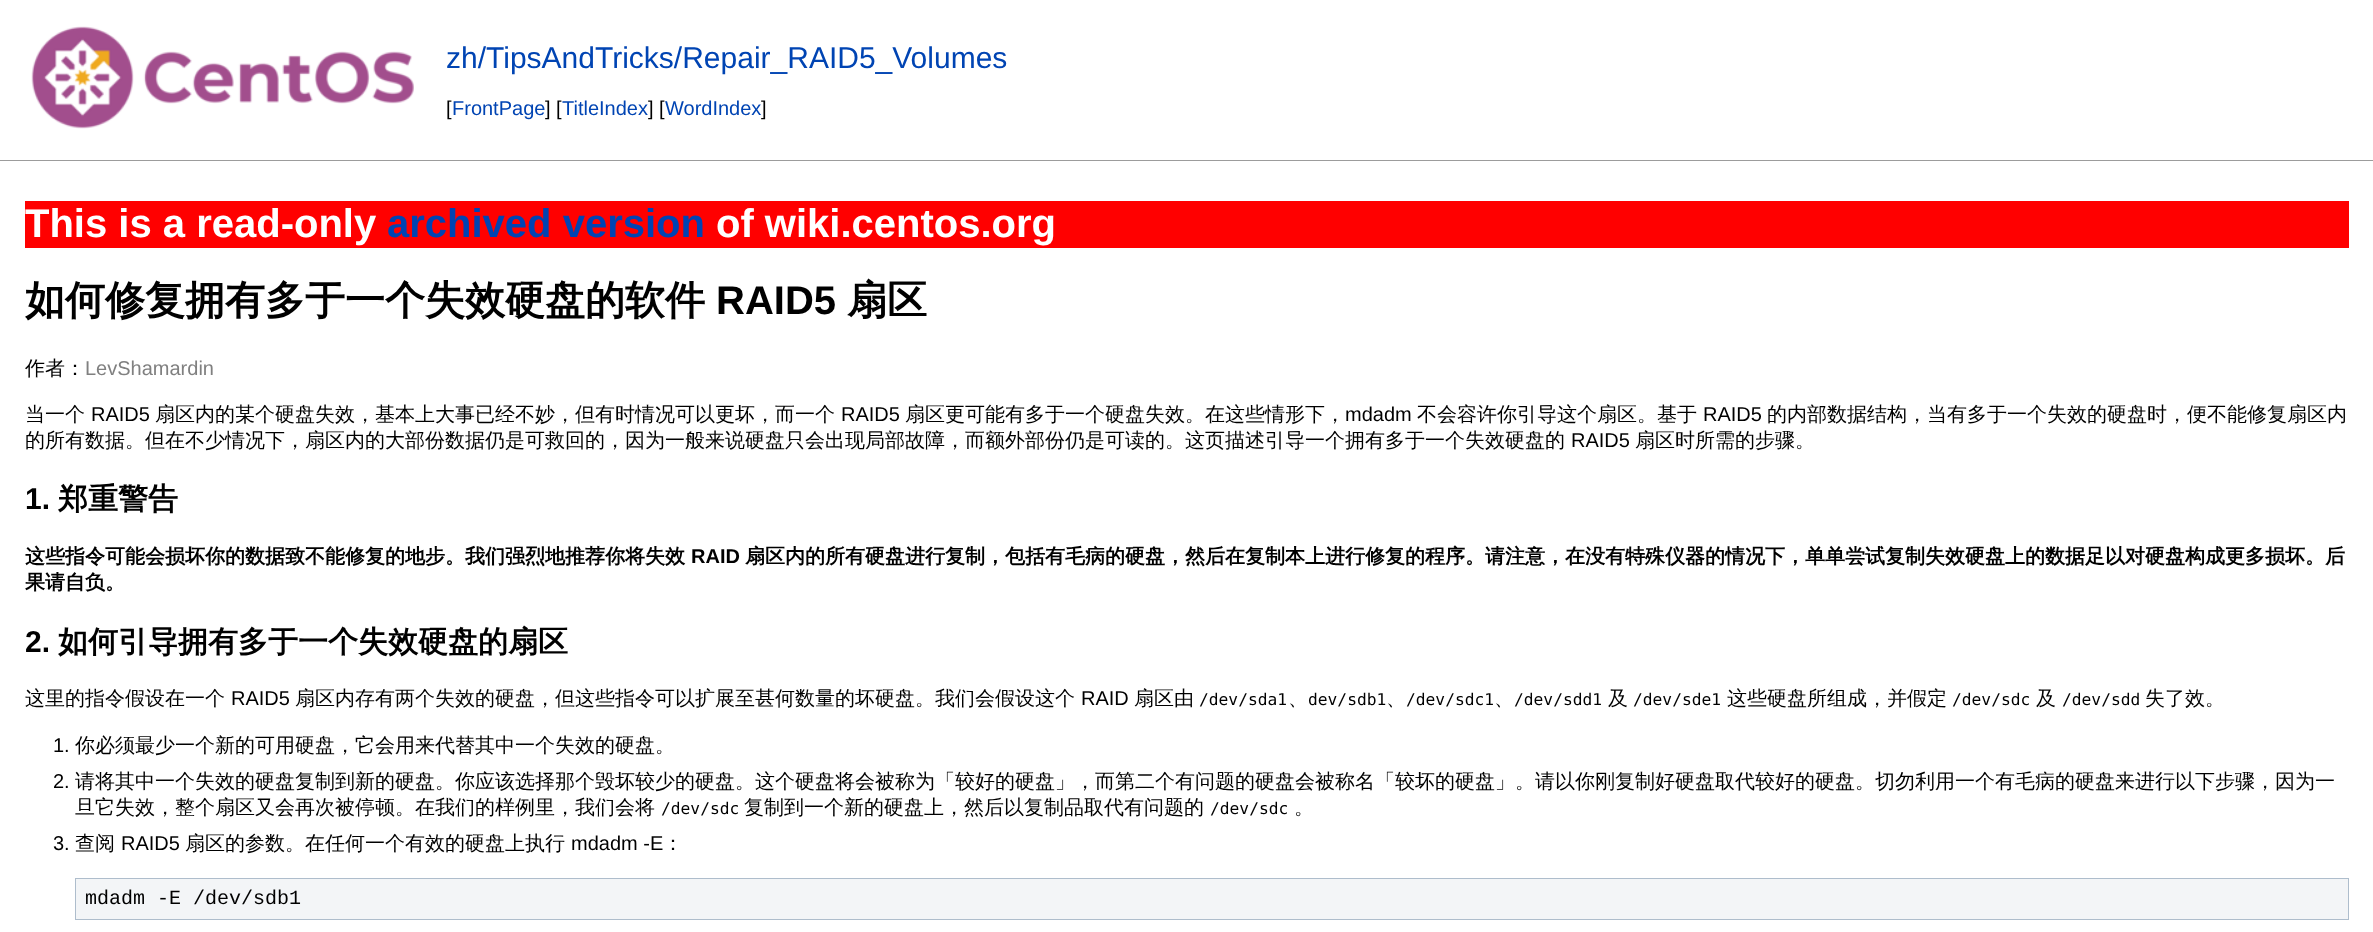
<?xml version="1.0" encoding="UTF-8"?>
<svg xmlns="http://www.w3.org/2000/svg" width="2373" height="932">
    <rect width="100%" height="100%" fill="#FFFFFF"/>
    <image x="31" y="26" width="383" height="103" href="img_01.png"/>
    <text x="446" y="68" font-family="Liberation Sans" font-size="30" fill="#0044B3">zh/TipsAndTricks/Repair_RAID5_Volumes</text>
    <text x="446" y="115" font-family="Liberation Sans" font-size="20" fill="#000000">[</text>
    <text x="452" y="115" font-family="Liberation Sans" font-size="20" fill="#0044B3">FrontPage</text>
    <text x="545" y="115" font-family="Liberation Sans" font-size="20" fill="#000000">] [</text>
    <text x="562" y="115" font-family="Liberation Sans" font-size="20" fill="#0044B3">TitleIndex</text>
    <text x="648" y="115" font-family="Liberation Sans" font-size="20" fill="#000000">] [</text>
    <text x="665" y="115" font-family="Liberation Sans" font-size="20" fill="#0044B3">WordIndex</text>
    <text x="761" y="115" font-family="Liberation Sans" font-size="20" fill="#000000">]</text>
    <rect x="0" y="160" width="2373" height="1" fill="#9C9C9C"/>
    <rect x="25" y="201" width="2324" height="47" fill="#FF0000"/>
    <text x="25" y="237" font-family="Liberation Sans" font-size="40" font-weight="700" fill="#FFFFFF">This is a read-only</text>
    <text x="387" y="237" font-family="Liberation Sans" font-size="40" font-weight="700" fill="#0044B3">archived version</text>
    <text x="716" y="237" font-family="Liberation Sans" font-size="40" font-weight="700" fill="#FFFFFF">of wiki.centos.org</text>
    <text x="25" y="314" font-family="WenQuanYi Zen Hei" font-size="40" font-weight="700" fill="#000000">如何修复拥有多于一个失效硬盘的软件</text>
    <text x="716" y="314" font-family="Liberation Sans" font-size="40" font-weight="700" fill="#000000">RAID5</text>
    <text x="847" y="314" font-family="WenQuanYi Zen Hei" font-size="40" font-weight="700" fill="#000000">扇区</text>
    <text x="25" y="375" font-family="WenQuanYi Zen Hei" font-size="20" font-weight="500" fill="#000000">作者：</text>
    <text x="85" y="375" font-family="Liberation Sans" font-size="20" fill="#808080">LevShamardin</text>
    <text x="25" y="421" font-family="WenQuanYi Zen Hei" font-size="20" font-weight="500" fill="#000000">当一个</text>
    <text x="91" y="421" font-family="Liberation Sans" font-size="20" fill="#000000">RAID5</text>
    <text x="155" y="421" font-family="WenQuanYi Zen Hei" font-size="20" font-weight="500" fill="#000000">扇区内的某个硬盘失效，基本上大事已经不妙，但有时情况可以更坏，而一个</text>
    <text x="841" y="421" font-family="Liberation Sans" font-size="20" fill="#000000">RAID5</text>
    <text x="905" y="421" font-family="WenQuanYi Zen Hei" font-size="20" font-weight="500" fill="#000000">扇区更可能有多于一个硬盘失效。在这些情形下，</text>
    <text x="1345" y="421" font-family="Liberation Sans" font-size="20" fill="#000000">mdadm</text>
    <text x="1417" y="421" font-family="WenQuanYi Zen Hei" font-size="20" font-weight="500" fill="#000000">不会容许你引导这个扇区。基于</text>
    <text x="1703" y="421" font-family="Liberation Sans" font-size="20" fill="#000000">RAID5</text>
    <text x="1767" y="421" font-family="WenQuanYi Zen Hei" font-size="20" font-weight="500" fill="#000000">的内部数据结构，当有多于一个失效的硬盘时，便不能修复扇区内</text>
    <text x="25" y="447" font-family="WenQuanYi Zen Hei" font-size="20" font-weight="500" fill="#000000">的所有数据。但在不少情况下，扇区内的大部份数据仍是可救回的，因为一般来说硬盘只会出现局部故障，而额外部份仍是可读的。这页描述引导一个拥有多于一个失效硬盘的</text>
    <text x="1571" y="447" font-family="Liberation Sans" font-size="20" fill="#000000">RAID5</text>
    <text x="1635" y="447" font-family="WenQuanYi Zen Hei" font-size="20" font-weight="500" fill="#000000">扇区时所需的步骤。</text>
    <text x="25" y="509" font-family="Liberation Sans" font-size="30" font-weight="700" fill="#000000">1.</text>
    <text x="58" y="509" font-family="WenQuanYi Zen Hei" font-size="30" font-weight="700" fill="#000000">郑重警告</text>
    <text x="25" y="563" font-family="WenQuanYi Zen Hei" font-size="20" font-weight="700" fill="#000000">这些指令可能会损坏你的数据致不能修复的地步。我们强烈地推荐你将失效</text>
    <text x="691" y="563" font-family="Liberation Sans" font-size="20" font-weight="700" fill="#000000">RAID</text>
    <text x="745" y="563" font-family="WenQuanYi Zen Hei" font-size="20" font-weight="700" fill="#000000">扇区内的所有硬盘进行复制，包括有毛病的硬盘，然后在复制本上进行修复的程序。请注意，在没有特殊仪器的情况下，单单尝试复制失效硬盘上的数据足以对硬盘构成更多损坏。后</text>
    <text x="25" y="589" font-family="WenQuanYi Zen Hei" font-size="20" font-weight="700" fill="#000000">果请自负。</text>
    <text x="25" y="652" font-family="Liberation Sans" font-size="30" font-weight="700" fill="#000000">2.</text>
    <text x="58" y="652" font-family="WenQuanYi Zen Hei" font-size="30" font-weight="700" fill="#000000">如何引导拥有多于一个失效硬盘的扇区</text>
    <text x="25" y="705" font-family="WenQuanYi Zen Hei" font-size="20" font-weight="500" fill="#000000">这里的指令假设在一个</text>
    <text x="231" y="705" font-family="Liberation Sans" font-size="20" fill="#000000">RAID5</text>
    <text x="295" y="705" font-family="WenQuanYi Zen Hei" font-size="20" font-weight="500" fill="#000000">扇区内存有两个失效的硬盘，但这些指令可以扩展至甚何数量的坏硬盘。我们会假设这个</text>
    <text x="1081" y="705" font-family="Liberation Sans" font-size="20" fill="#000000">RAID</text>
    <text x="1134" y="705" font-family="WenQuanYi Zen Hei" font-size="20" font-weight="500" fill="#000000">扇区由</text>
    <text x="1199" y="705" font-family="DejaVu Sans Mono" font-size="16.25" fill="#000000">/dev/sda1</text>
    <text x="1288" y="705" font-family="WenQuanYi Zen Hei" font-size="20" font-weight="500" fill="#000000">、</text>
    <text x="1308" y="705" font-family="DejaVu Sans Mono" font-size="16.25" fill="#000000">dev/sdb1</text>
    <text x="1386" y="705" font-family="WenQuanYi Zen Hei" font-size="20" font-weight="500" fill="#000000">、</text>
    <text x="1406" y="705" font-family="DejaVu Sans Mono" font-size="16.25" fill="#000000">/dev/sdc1</text>
    <text x="1494" y="705" font-family="WenQuanYi Zen Hei" font-size="20" font-weight="500" fill="#000000">、</text>
    <text x="1514" y="705" font-family="DejaVu Sans Mono" font-size="16.25" fill="#000000">/dev/sdd1</text>
    <text x="1608" y="705" font-family="WenQuanYi Zen Hei" font-size="20" font-weight="500" fill="#000000">及</text>
    <text x="1633" y="705" font-family="DejaVu Sans Mono" font-size="16.25" fill="#000000">/dev/sde1</text>
    <text x="1727" y="705" font-family="WenQuanYi Zen Hei" font-size="20" font-weight="500" fill="#000000">这些硬盘所组成，并假定</text>
    <text x="1952" y="705" font-family="DejaVu Sans Mono" font-size="16.25" fill="#000000">/dev/sdc</text>
    <text x="2036" y="705" font-family="WenQuanYi Zen Hei" font-size="20" font-weight="500" fill="#000000">及</text>
    <text x="2062" y="705" font-family="DejaVu Sans Mono" font-size="16.25" fill="#000000">/dev/sdd</text>
    <text x="2145" y="705" font-family="WenQuanYi Zen Hei" font-size="20" font-weight="500" fill="#000000">失了效。</text>
    <text x="53" y="752" font-family="Liberation Sans" font-size="20" fill="#000000">1.</text>
    <text x="75" y="752" font-family="WenQuanYi Zen Hei" font-size="20" font-weight="500" fill="#000000">你必须最少一个新的可用硬盘，它会用来代替其中一个失效的硬盘。</text>
    <text x="53" y="788" font-family="Liberation Sans" font-size="20" fill="#000000">2.</text>
    <text font-family="WenQuanYi Zen Hei" font-size="20" font-weight="500" fill="#000000">
        <tspan x="75" y="788">请将其中一个失效的硬盘复制到新的硬盘。你应该选择那个毁坏较少的硬盘。这个硬盘将会被称为「较好的硬盘」，而第二个有问题的硬盘会被称名「较坏的硬盘」。请以你刚复制好硬盘取代较好的硬盘。切勿利用一个有毛病的硬盘来进行以下步骤，因为一</tspan>
        <tspan x="75" y="814">旦它失效，整个扇区又会再次被停顿。在我们的样例里，我们会将</tspan>
    </text>
    <text x="661" y="814" font-family="DejaVu Sans Mono" font-size="16.25" fill="#000000">/dev/sdc</text>
    <text x="744" y="814" font-family="WenQuanYi Zen Hei" font-size="20" font-weight="500" fill="#000000">复制到一个新的硬盘上，然后以复制品取代有问题的</text>
    <text x="1210" y="814" font-family="DejaVu Sans Mono" font-size="16.25" fill="#000000">/dev/sdc</text>
    <text x="1294" y="814" font-family="WenQuanYi Zen Hei" font-size="20" font-weight="500" fill="#000000">。</text>
    <text x="53" y="850" font-family="Liberation Sans" font-size="20" fill="#000000">3.</text>
    <text x="75" y="850" font-family="WenQuanYi Zen Hei" font-size="20" font-weight="500" fill="#000000">查阅</text>
    <text x="121" y="850" font-family="Liberation Sans" font-size="20" fill="#000000">RAID5</text>
    <text x="185" y="850" font-family="WenQuanYi Zen Hei" font-size="20" font-weight="500" fill="#000000">扇区的参数。在任何一个有效的硬盘上执行</text>
    <text x="571" y="850" font-family="Liberation Sans" font-size="20" fill="#000000">mdadm -E</text>
    <text x="663" y="850" font-family="WenQuanYi Zen Hei" font-size="20" font-weight="500" fill="#000000">：</text>
    <rect x="75.5" y="878.5" width="2273" height="41" fill="#F3F5F7" stroke="#AEBDCC"/>
    <text x="85" y="904" font-family="Liberation Mono" font-size="20" fill="#000000">mdadm -E /dev/sdb1</text>
</svg>
